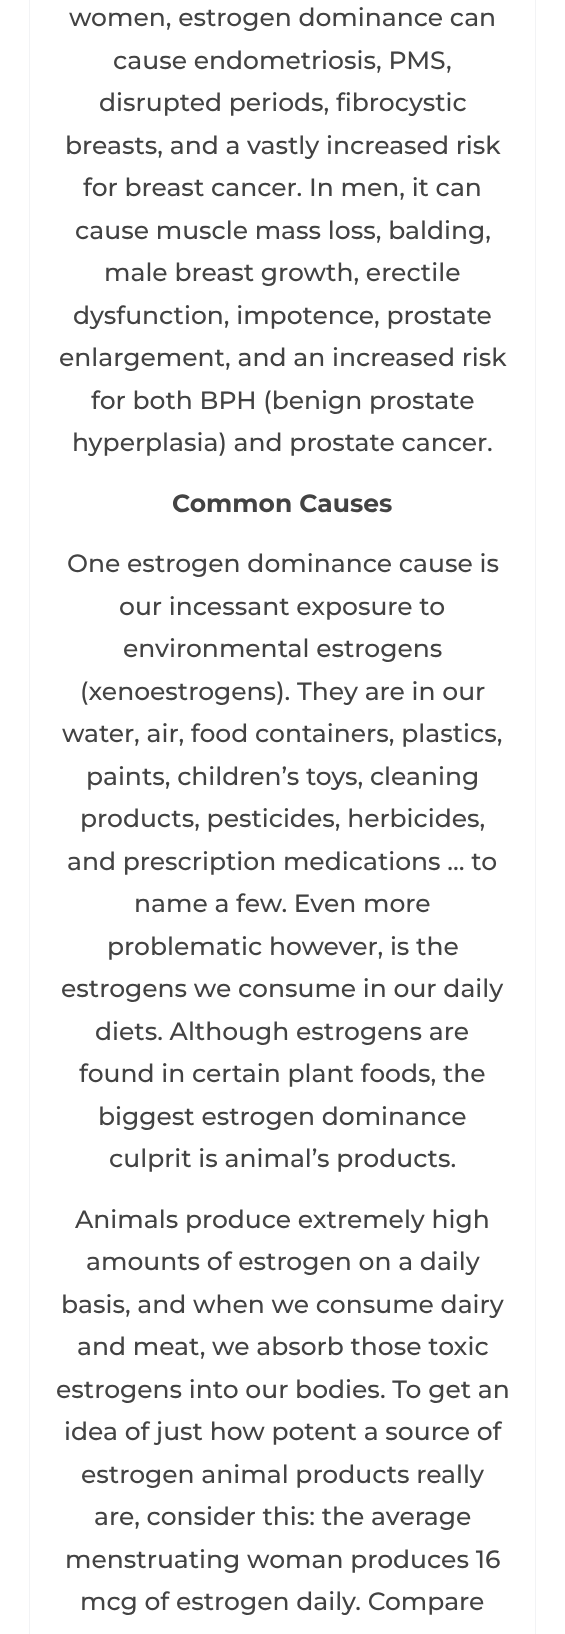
<?xml version="1.0" encoding="UTF-8"?>
<svg xmlns="http://www.w3.org/2000/svg" width="565" height="1634">
    <rect width="100%" height="100%" fill="#FFFFFF"/>
    <rect x="535" y="0" width="1" height="1634" fill="#F2F3F5"/>
    <rect x="29" y="0" width="1" height="1634" fill="#F2F3F5"/>
    <text x="69" y="26" font-family="Montserrat" font-size="25" font-weight="500" fill="#434343">women, estrogen dominance can</text>
    <text x="113" y="69" font-family="Montserrat" font-size="25" font-weight="500" fill="#434343">cause endometriosis, PMS,</text>
    <text x="99" y="111" font-family="Montserrat" font-size="25" font-weight="500" fill="#434343">disrupted periods, fibrocystic</text>
    <text x="65" y="154" font-family="Montserrat" font-size="25" font-weight="500" fill="#434343">breasts, and a vastly increased risk</text>
    <text x="83" y="196" font-family="Montserrat" font-size="25" font-weight="500" fill="#434343">for breast cancer. In men, it can</text>
    <text x="75" y="239" font-family="Montserrat" font-size="25" font-weight="500" fill="#434343">cause muscle mass loss, balding,</text>
    <text x="104" y="281" font-family="Montserrat" font-size="25" font-weight="500" fill="#434343">male breast growth, erectile</text>
    <text x="73" y="324" font-family="Montserrat" font-size="25" font-weight="500" fill="#434343">dysfunction, impotence, prostate</text>
    <text x="59" y="366" font-family="Montserrat" font-size="25" font-weight="500" fill="#434343">enlargement, and an increased risk</text>
    <text x="91" y="409" font-family="Montserrat" font-size="25" font-weight="500" fill="#434343">for both BPH (benign prostate</text>
    <text x="72" y="451" font-family="Montserrat" font-size="25" font-weight="500" fill="#434343">hyperplasia) and prostate cancer.</text>
    <text x="172" y="512" font-family="Montserrat" font-size="25" font-weight="700" fill="#434343">Common Causes</text>
    <text x="67" y="572" font-family="Montserrat" font-size="25" font-weight="500" fill="#434343">One estrogen dominance cause is</text>
    <text x="119" y="615" font-family="Montserrat" font-size="25" font-weight="500" fill="#434343">our incessant exposure to</text>
    <text x="123" y="657" font-family="Montserrat" font-size="25" font-weight="500" fill="#434343">environmental estrogens</text>
    <text x="80" y="700" font-family="Montserrat" font-size="25" font-weight="500" fill="#434343">(xenoestrogens). They are in our</text>
    <text x="62" y="742" font-family="Montserrat" font-size="25" font-weight="500" fill="#434343">water, air, food containers, plastics,</text>
    <text x="86" y="785" font-family="Montserrat" font-size="25" font-weight="500" fill="#434343">paints, children’s toys, cleaning</text>
    <text x="80" y="827" font-family="Montserrat" font-size="25" font-weight="500" fill="#434343">products, pesticides, herbicides,</text>
    <text x="67" y="870" font-family="Montserrat" font-size="25" font-weight="500" fill="#434343">and prescription medications … to</text>
    <text x="134" y="912" font-family="Montserrat" font-size="25" font-weight="500" fill="#434343">name a few. Even more</text>
    <text x="107" y="955" font-family="Montserrat" font-size="25" font-weight="500" fill="#434343">problematic however, is the</text>
    <text x="61" y="997" font-family="Montserrat" font-size="25" font-weight="500" fill="#434343">estrogens we consume in our daily</text>
    <text x="95" y="1040" font-family="Montserrat" font-size="25" font-weight="500" fill="#434343">diets. Although estrogens are</text>
    <text x="79" y="1082" font-family="Montserrat" font-size="25" font-weight="500" fill="#434343">found in certain plant foods, the</text>
    <text x="98" y="1125" font-family="Montserrat" font-size="25" font-weight="500" fill="#434343">biggest estrogen dominance</text>
    <text x="109" y="1167" font-family="Montserrat" font-size="25" font-weight="500" fill="#434343">culprit is animal’s products.</text>
    <text x="75" y="1228" font-family="Montserrat" font-size="25" font-weight="500" fill="#434343">Animals produce extremely high</text>
    <text x="86" y="1270" font-family="Montserrat" font-size="25" font-weight="500" fill="#434343">amounts of estrogen on a daily</text>
    <text x="61" y="1313" font-family="Montserrat" font-size="25" font-weight="500" fill="#434343">basis, and when we consume dairy</text>
    <text x="77" y="1355" font-family="Montserrat" font-size="25" font-weight="500" fill="#434343">and meat, we absorb those toxic</text>
    <text x="56" y="1398" font-family="Montserrat" font-size="25" font-weight="500" fill="#434343">estrogens into our bodies. To get an</text>
    <text x="64" y="1440" font-family="Montserrat" font-size="25" font-weight="500" fill="#434343">idea of just how potent a source of</text>
    <text x="81" y="1483" font-family="Montserrat" font-size="25" font-weight="500" fill="#434343">estrogen animal products really</text>
    <text x="94" y="1525" font-family="Montserrat" font-size="25" font-weight="500" fill="#434343">are, consider this: the average</text>
    <text x="65" y="1568" font-family="Montserrat" font-size="25" font-weight="500" fill="#434343">menstruating woman produces 16</text>
    <text x="80" y="1610" font-family="Montserrat" font-size="25" font-weight="500" fill="#434343">mcg of estrogen daily. Compare</text>
</svg>
